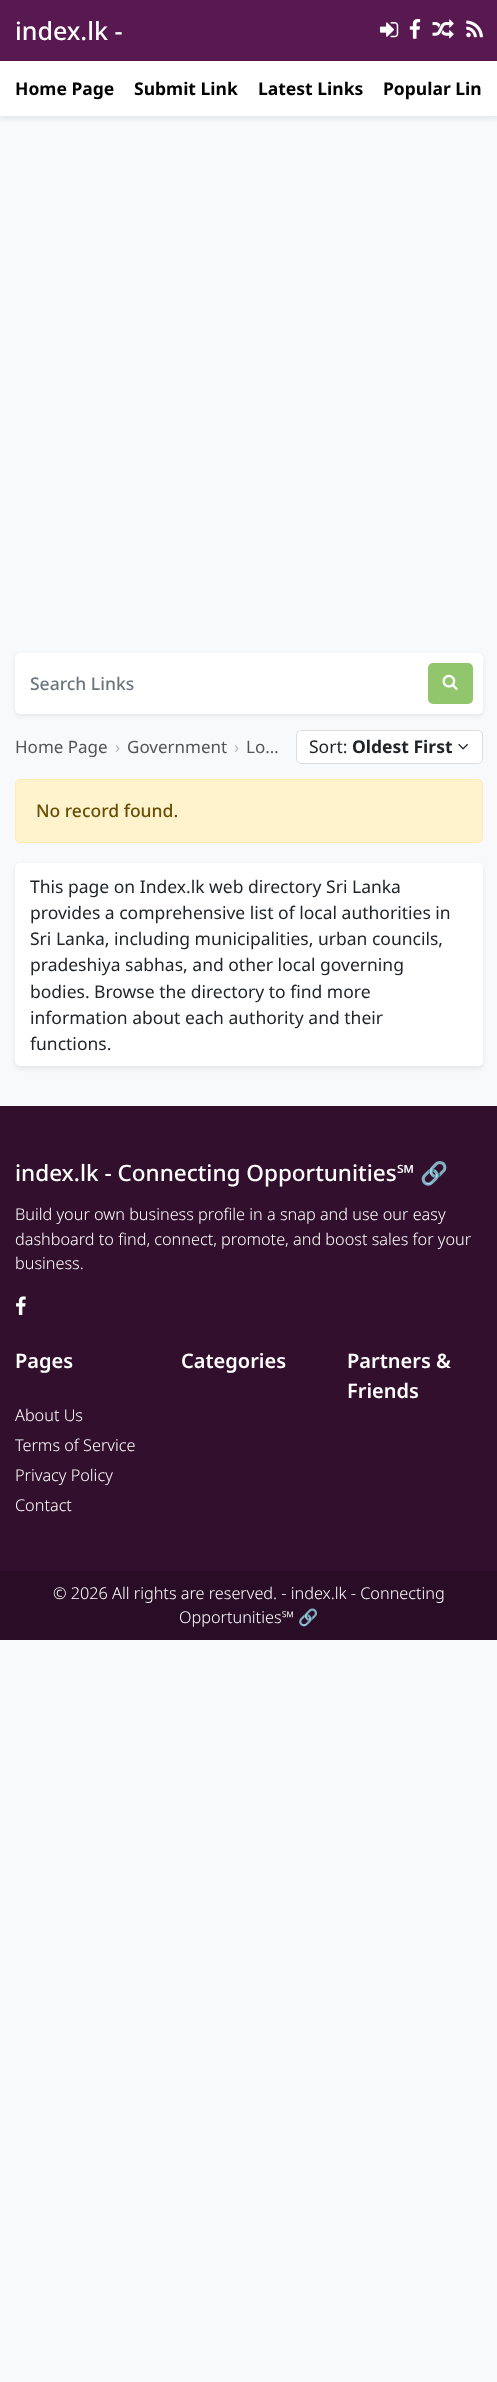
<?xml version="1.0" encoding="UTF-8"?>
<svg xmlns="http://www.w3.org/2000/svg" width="497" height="2382">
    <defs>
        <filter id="blur1" x="-50%" y="-200%" width="200%" height="500%"><feGaussianBlur stdDeviation="2.5"/></filter>
    </defs>
    <rect width="100%" height="100%" fill="#F8F9FA"/>
    <rect x="0" y="0" width="497" height="61" fill="#571950"/>
    <text x="15" y="40" font-family="Noto Sans" font-size="25" font-weight="500" fill="#FFFFFF">index.lk -</text>
    <image x="380" y="22" width="19" height="16" href="img_01.png"/>
    <image x="409" y="19" width="12" height="20" href="img_02.png"/>
    <image x="432" y="19" width="22" height="20" href="img_03.png"/>
    <image x="466" y="20" width="17" height="18" href="img_04.png"/>
    <rect x="0" y="64" width="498" height="55" fill="#000000" fill-opacity="0.07" filter="url(#blur1)"/>
    <rect x="0" y="61" width="497" height="55" fill="#FFFFFF"/>
    <text x="15" y="95" font-family="Noto Sans" font-size="17.5" font-weight="700" fill="#000000">Home Page</text>
    <text x="134" y="95" font-family="Noto Sans" font-size="17.5" font-weight="700" fill="#000000">Submit Link</text>
    <text x="258" y="95" font-family="Noto Sans" font-size="17.5" font-weight="700" fill="#000000">Latest Links</text>
    <text x="383" y="95" font-family="Noto Sans" font-size="17.5" font-weight="700" fill="#000000">Popular Lin</text>
    <rect x="15" y="655" width="468" height="61" rx="5" fill="#000000" fill-opacity="0.07" filter="url(#blur1)"/>
    <rect x="15" y="653" width="468" height="61" rx="5" fill="#FFFFFF"/>
    <text x="30" y="690" font-family="Noto Sans" font-size="17.5" font-weight="500" fill="#6C757D">Search Links</text>
    <rect x="428" y="663" width="45" height="41" rx="5" fill="#92C66C"/>
    <image x="442" y="674" width="16" height="16" href="img_05.png"/>
    <text x="15" y="753" font-family="Noto Sans" font-size="17" fill="#555555">Home Page</text>
    <text x="115" y="753" font-family="Noto Sans" font-size="17" fill="#BBBBBB">›</text>
    <text x="127" y="753" font-family="Noto Sans" font-size="17" fill="#555555">Government</text>
    <text x="234" y="753" font-family="Noto Sans" font-size="17" fill="#BBBBBB">›</text>
    <text x="246" y="753" font-family="Noto Sans" font-size="17" fill="#555555">Lo…</text>
    <rect x="296.5" y="730.5" width="186" height="33" rx="4.5" fill="#FFFFFF" stroke="#DDDDDD"/>
    <text x="309" y="753" font-family="Noto Sans" font-size="17.5" fill="#212529">Sort:</text>
    <text x="352" y="753" font-family="Noto Sans" font-size="17.5" font-weight="700" fill="#212529">Oldest First</text>
    <image x="458" y="743" width="10" height="7" href="img_06.png"/>
    <rect x="15.5" y="779.5" width="467" height="63" rx="4.5" fill="#FFF3CD" stroke="#FFECB5"/>
    <text x="36" y="817" font-family="Noto Sans" font-size="17.5" font-weight="500" fill="#664D03">No record found.</text>
    <rect x="15" y="865" width="468" height="204" rx="5" fill="#000000" fill-opacity="0.07" filter="url(#blur1)"/>
    <rect x="15" y="863" width="468" height="203" rx="5" fill="#FFFFFF"/>
    <text font-family="Noto Sans" font-size="17.5" fill="#212529">
        <tspan x="30" y="893">This page on Index.lk web directory Sri Lanka</tspan>
        <tspan x="30" y="919">provides a comprehensive list of local authorities in</tspan>
        <tspan x="30" y="945">Sri Lanka, including municipalities, urban councils,</tspan>
        <tspan x="30" y="971">pradeshiya sabhas, and other local governing</tspan>
        <tspan x="30" y="998">bodies. Browse the directory to find more</tspan>
        <tspan x="30" y="1024">information about each authority and their</tspan>
        <tspan x="30" y="1050">functions.</tspan>
    </text>
    <rect x="0" y="1106" width="497" height="465" fill="#310F2D"/>
    <text x="15" y="1181" font-family="Noto Sans" font-size="22.5" font-weight="500" fill="#FFFFFF">index.lk - Connecting Opportunities℠</text>
    <text x="420" y="1181" font-family="Noto Color Emoji" font-size="22.5" fill="#FFFFFF">🔗</text>
    <text font-family="Noto Sans" font-size="16.25" font-weight="300" fill="#FFFFFF">
        <tspan x="15" y="1220">Build your own business profile in a snap and use our easy</tspan>
        <tspan x="15" y="1245">dashboard to find, connect, promote, and boost sales for your</tspan>
        <tspan x="15" y="1269">business.</tspan>
    </text>
    <image x="16" y="1296" width="10" height="19" href="img_07.png"/>
    <text x="15" y="1368" font-family="Noto Sans" font-size="20" font-weight="600" fill="#FFFFFF">Pages</text>
    <text font-family="Noto Sans" font-size="16.25" font-weight="300" fill="#FFFFFF">
        <tspan x="15" y="1421">About Us</tspan>
        <tspan x="15" y="1451">Terms of Service</tspan>
        <tspan x="15" y="1481">Privacy Policy</tspan>
        <tspan x="15" y="1511">Contact</tspan>
    </text>
    <text x="181" y="1368" font-family="Noto Sans" font-size="20" font-weight="600" fill="#FFFFFF">Categories</text>
    <text font-family="Noto Sans" font-size="20" font-weight="600" fill="#FFFFFF">
        <tspan x="347" y="1368">Partners &amp;</tspan>
        <tspan x="347" y="1398">Friends</tspan>
    </text>
    <rect x="0" y="1571" width="497" height="69" fill="#290C26"/>
    <text x="53" y="1599" font-family="Noto Sans" font-size="16.25" font-weight="300" fill="#FFFFFF">© 2026 All rights are reserved. - index.lk - Connecting</text>
    <text x="179" y="1623" font-family="Noto Sans" font-size="16.25" font-weight="300" fill="#FFFFFF">Opportunities℠</text>
    <text x="298" y="1623" font-family="Noto Color Emoji" font-size="16.25" fill="#FFFFFF">🔗</text>
</svg>
